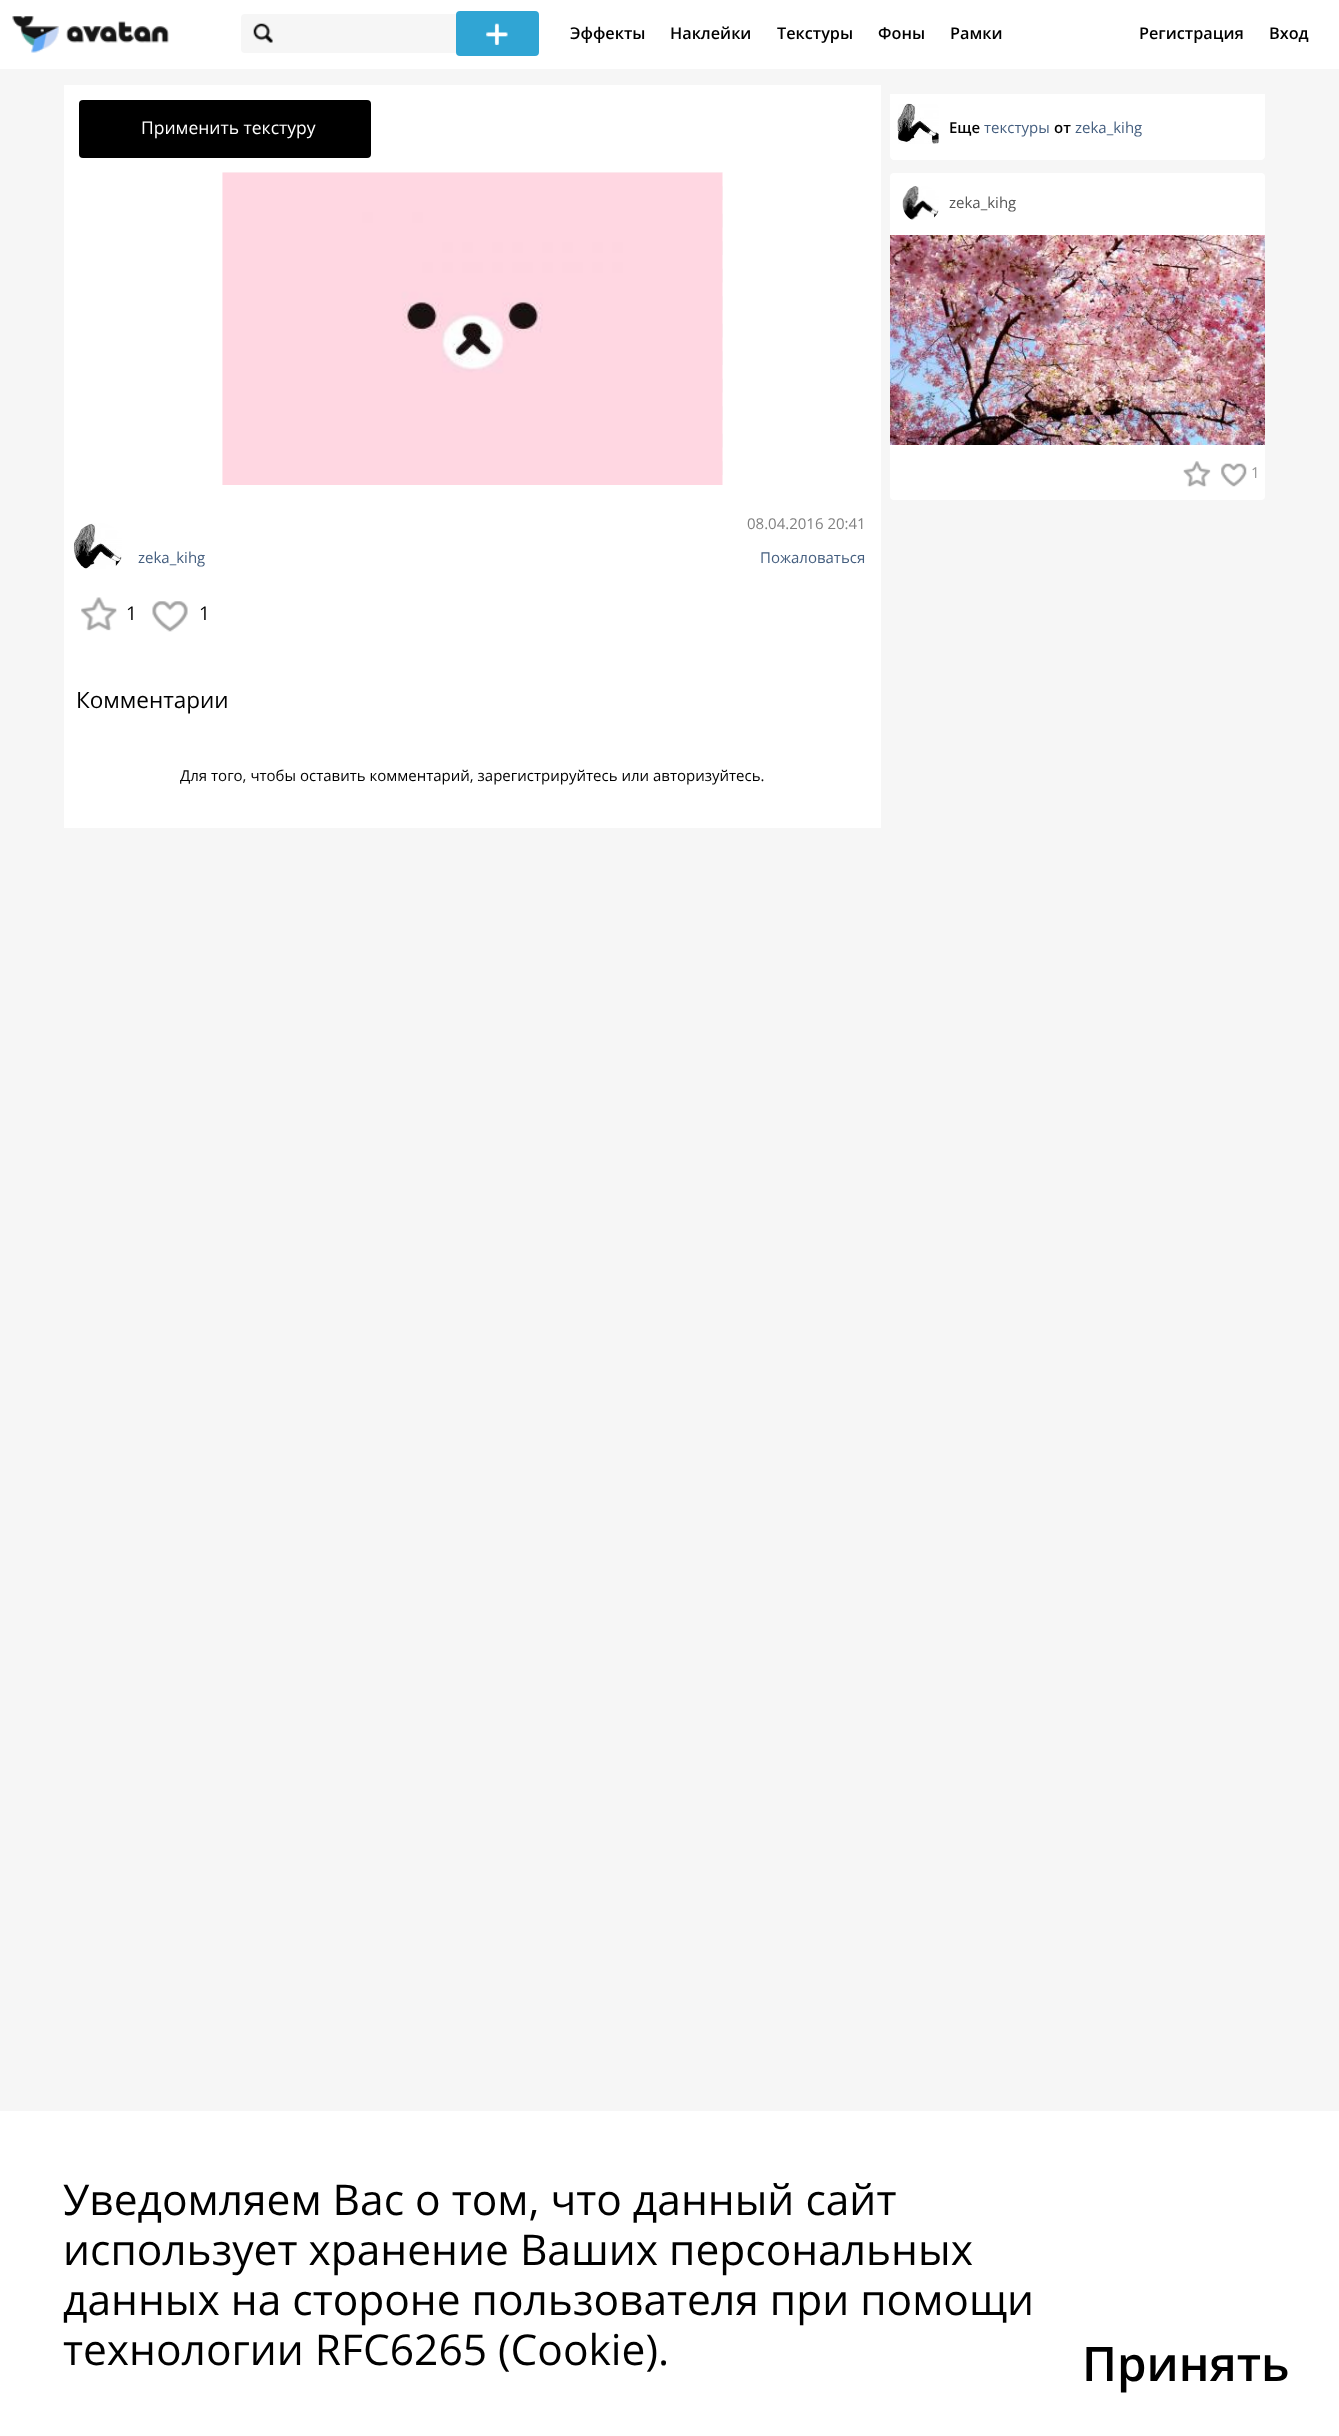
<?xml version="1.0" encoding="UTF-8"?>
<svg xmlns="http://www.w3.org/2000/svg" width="1339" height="2436">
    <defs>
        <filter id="blur1" x="-50%" y="-200%" width="200%" height="500%"><feGaussianBlur stdDeviation="0.5"/></filter>
    </defs>
    <rect width="100%" height="100%" fill="#F6F6F6"/>
    <rect x="0" y="0" width="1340" height="69" fill="#000000" fill-opacity="0.3" filter="url(#blur1)"/>
    <rect x="0" y="0" width="1339" height="69" fill="#FFFFFF"/>
    <image x="12" y="16" width="157" height="37" href="img_01.png"/>
    <rect x="241" y="14" width="290" height="39" rx="4" fill="#F6F6F6"/>
    <image x="253" y="23" width="20" height="20" href="img_02.png"/>
    <rect x="456" y="11" width="83" height="45" rx="4" fill="#30A5D4"/>
    <image x="486" y="23" width="22" height="22" href="img_03.png"/>
    <text x="570" y="39" font-family="Open Sans" font-size="16.25" font-weight="600" fill="#000000">Эффекты</text>
    <text x="670" y="39" font-family="Open Sans" font-size="16.25" font-weight="600" fill="#000000">Наклейки</text>
    <text x="777" y="39" font-family="Open Sans" font-size="16.25" font-weight="600" fill="#000000">Текстуры</text>
    <text x="878" y="39" font-family="Open Sans" font-size="16.25" font-weight="600" fill="#000000">Фоны</text>
    <text x="950" y="39" font-family="Open Sans" font-size="16.25" font-weight="600" fill="#000000">Рамки</text>
    <text x="1139" y="39" font-family="Open Sans" font-size="16.25" font-weight="600" fill="#000000">Регистрация</text>
    <text x="1269" y="39" font-family="Open Sans" font-size="16.25" font-weight="600" fill="#000000">Вход</text>
    <rect x="64" y="85" width="817" height="743" fill="#FFFFFF"/>
    <rect x="79" y="100" width="292" height="58" rx="4" fill="#000000"/>
    <text x="141" y="134" font-family="Open Sans" font-size="17.5" fill="#FFFFFF">Применить текстуру</text>
    <image x="222" y="172" width="501" height="313" href="img_04.png"/>
    <image x="222" y="172" width="501" height="313" href="img_05.png"/>
    <image x="73" y="523" width="49" height="46" href="img_06.png"/>
    <text x="138" y="563" font-family="Open Sans" font-size="15" fill="#445E7F">zeka_kihg</text>
    <text x="747" y="529" font-family="Open Sans" font-size="15" fill="#808080">08.04.2016 20:41</text>
    <text x="760" y="563" font-family="Open Sans" font-size="15" fill="#445E7F">Пожаловаться</text>
    <image x="81" y="597" width="36" height="34" href="img_07.png"/>
    <text x="126" y="620" font-family="Open Sans" font-size="19" fill="#000000">1</text>
    <image x="152" y="601" width="36" height="31" href="img_08.png"/>
    <text x="199" y="620" font-family="Open Sans" font-size="19" fill="#000000">1</text>
    <text x="76" y="708" font-family="Open Sans" font-size="22.5" fill="#000000">Комментарии</text>
    <text x="180" y="781" font-family="Open Sans" font-size="15" fill="#000000">Для того, чтобы оставить комментарий, зарегистрируйтесь или авторизуйтесь.</text>
    <path d="M 890 94 H 1265 V 156 C 1265 158 1263 160 1261 160 H 894 C 892 160 890 158 890 156 Z" fill="#FFFFFF"/>
    <image x="897" y="103" width="42" height="41" href="img_09.png"/>
    <text x="949" y="133" font-family="Open Sans" font-size="15" font-weight="600" fill="#000000">Еще</text>
    <text x="984" y="133" font-family="Open Sans" font-size="15" fill="#445E7F">текстуры</text>
    <text x="1054" y="133" font-family="Open Sans" font-size="15" font-weight="600" fill="#000000">от</text>
    <text x="1075" y="133" font-family="Open Sans" font-size="15" fill="#445E7F">zeka_kihg</text>
    <rect x="890" y="173" width="375" height="327" rx="4" fill="#FFFFFF"/>
    <image x="902" y="186" width="37" height="34" href="img_10.png"/>
    <text x="949" y="208" font-family="Open Sans" font-size="15" fill="#555555">zeka_kihg</text>
    <image x="890" y="235" width="375" height="210" href="img_11.png"/>
    <image x="1183" y="461" width="28" height="26" href="img_12.png"/>
    <image x="1221" y="463" width="26" height="24" href="img_13.png"/>
    <text x="1251" y="478" font-family="Open Sans" font-size="15" fill="#959595">1</text>
    <rect x="0" y="2111" width="1339" height="325" fill="#FFFFFF"/>
    <text font-family="Open Sans" font-size="42.5" fill="#000000">
        <tspan x="63" y="2215">Уведомляем Вас о том, что данный сайт</tspan>
        <tspan x="63" y="2265">использует хранение Ваших персональных</tspan>
        <tspan x="63" y="2315">данных на стороне пользователя при помощи</tspan>
        <tspan x="63" y="2365">технологии RFC6265 (Cookie).</tspan>
    </text>
    <text x="1082" y="2381" font-family="Open Sans" font-size="47.5" font-weight="600" fill="#000000">Принять</text>
</svg>
